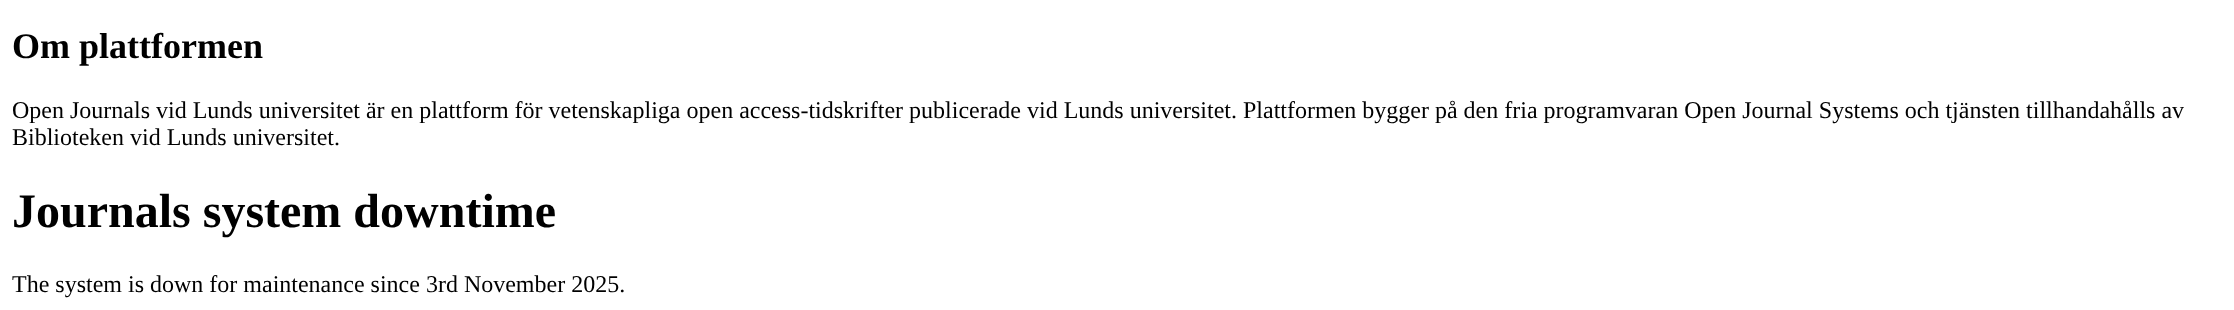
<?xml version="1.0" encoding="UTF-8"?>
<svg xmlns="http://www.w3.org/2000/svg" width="2234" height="310">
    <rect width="100%" height="100%" fill="#FFFFFF"/>
    <text x="12" y="58" font-family="Liberation Serif" font-size="36" font-weight="700" fill="#000000">Om plattformen</text>
    <text font-family="Liberation Serif" font-size="24" fill="#000000">
        <tspan x="12" y="118">Open Journals vid Lunds universitet är en plattform för vetenskapliga open access-tidskrifter publicerade vid Lunds universitet. Plattformen bygger på den fria programvaran Open Journal Systems och tjänsten tillhandahålls av</tspan>
        <tspan x="12" y="145">Biblioteken vid Lunds universitet.</tspan>
    </text>
    <text x="12" y="227" font-family="Liberation Serif" font-size="48" font-weight="700" fill="#000000">Journals system downtime</text>
    <text x="12" y="292" font-family="Liberation Serif" font-size="24" fill="#000000">The system is down for maintenance since 3rd November 2025.</text>
</svg>
